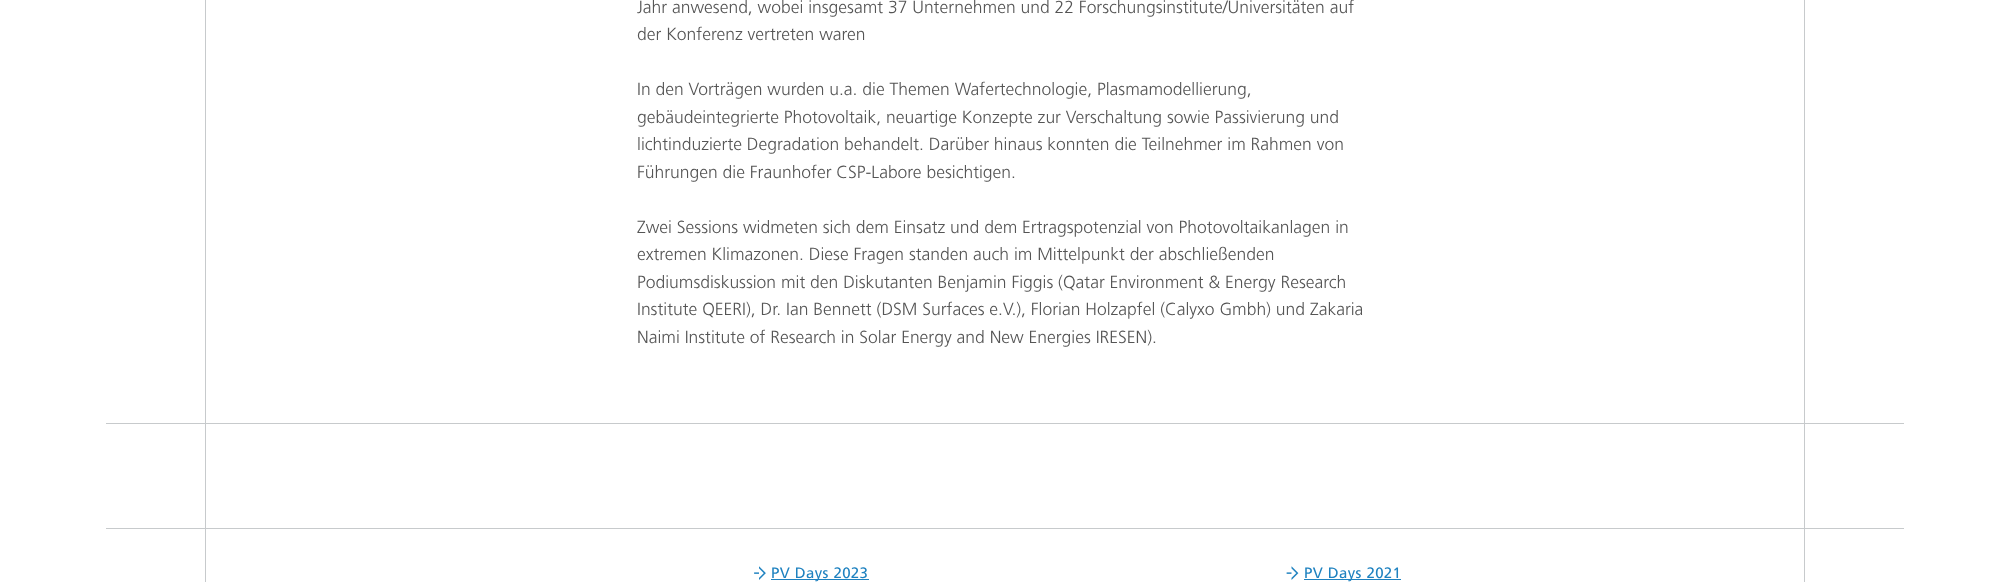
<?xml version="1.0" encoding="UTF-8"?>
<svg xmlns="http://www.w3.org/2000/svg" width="2010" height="582">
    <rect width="100%" height="100%" fill="#FFFFFF"/>
    <rect x="106" y="423" width="100" height="1" fill="#C7CACC"/>
    <rect x="205" y="423" width="1699" height="1" fill="#C7CACC"/>
    <rect x="1804" y="0" width="1" height="528" fill="#C7CACC"/>
    <rect x="205" y="0" width="1" height="528" fill="#C7CACC"/>
    <text font-family="Frutiger" font-size="17.5" font-weight="300" fill="#555555">
        <tspan x="637" y="13">Jahr anwesend, wobei insgesamt 37 Unternehmen und 22 Forschungsinstitute/Universitäten auf</tspan>
        <tspan x="637" y="40">der Konferenz vertreten waren</tspan>
    </text>
    <text font-family="Frutiger" font-size="17.5" font-weight="300" fill="#555555">
        <tspan x="637" y="95">In den Vorträgen wurden u.a. die Themen Wafertechnologie, Plasmamodellierung,</tspan>
        <tspan x="637" y="123">gebäudeintegrierte Photovoltaik, neuartige Konzepte zur Verschaltung sowie Passivierung und</tspan>
        <tspan x="637" y="150">lichtinduzierte Degradation behandelt. Darüber hinaus konnten die Teilnehmer im Rahmen von</tspan>
        <tspan x="637" y="178">Führungen die Fraunhofer CSP-Labore besichtigen.</tspan>
    </text>
    <text font-family="Frutiger" font-size="17.5" font-weight="300" fill="#555555">
        <tspan x="637" y="233">Zwei Sessions widmeten sich dem Einsatz und dem Ertragspotenzial von Photovoltaikanlagen in</tspan>
        <tspan x="637" y="260">extremen Klimazonen. Diese Fragen standen auch im Mittelpunkt der abschließenden</tspan>
        <tspan x="637" y="288">Podiumsdiskussion mit den Diskutanten Benjamin Figgis (Qatar Environment &amp; Energy Research</tspan>
        <tspan x="637" y="315">Institute QEERI), Dr. Ian Bennett (DSM Surfaces e.V.), Florian Holzapfel (Calyxo Gmbh) und Zakaria</tspan>
        <tspan x="637" y="343">Naimi Institute of Research in Solar Energy and New Energies IRESEN).</tspan>
    </text>
    <rect x="106" y="528" width="100" height="1" fill="#C7CACC"/>
    <rect x="205" y="528" width="1699" height="1" fill="#C7CACC"/>
    <rect x="1804" y="528" width="1" height="54" fill="#C7CACC"/>
    <rect x="205" y="528" width="1" height="54" fill="#C7CACC"/>
    <image x="754" y="566" width="12" height="14" href="img_01.png"/>
    <rect x="771" y="579" width="98" height="1" fill="#1F82C0"/>
    <text x="771" y="578" font-family="Frutiger" font-size="15" letter-spacing="0.4" fill="#1F82C0">PV Days 2023</text>
    <image x="1286" y="566" width="13" height="14" href="img_02.png"/>
    <rect x="1304" y="579" width="97" height="1" fill="#1F82C0"/>
    <text x="1304" y="578" font-family="Frutiger" font-size="15" letter-spacing="0.4" fill="#1F82C0">PV Days 2021</text>
</svg>
